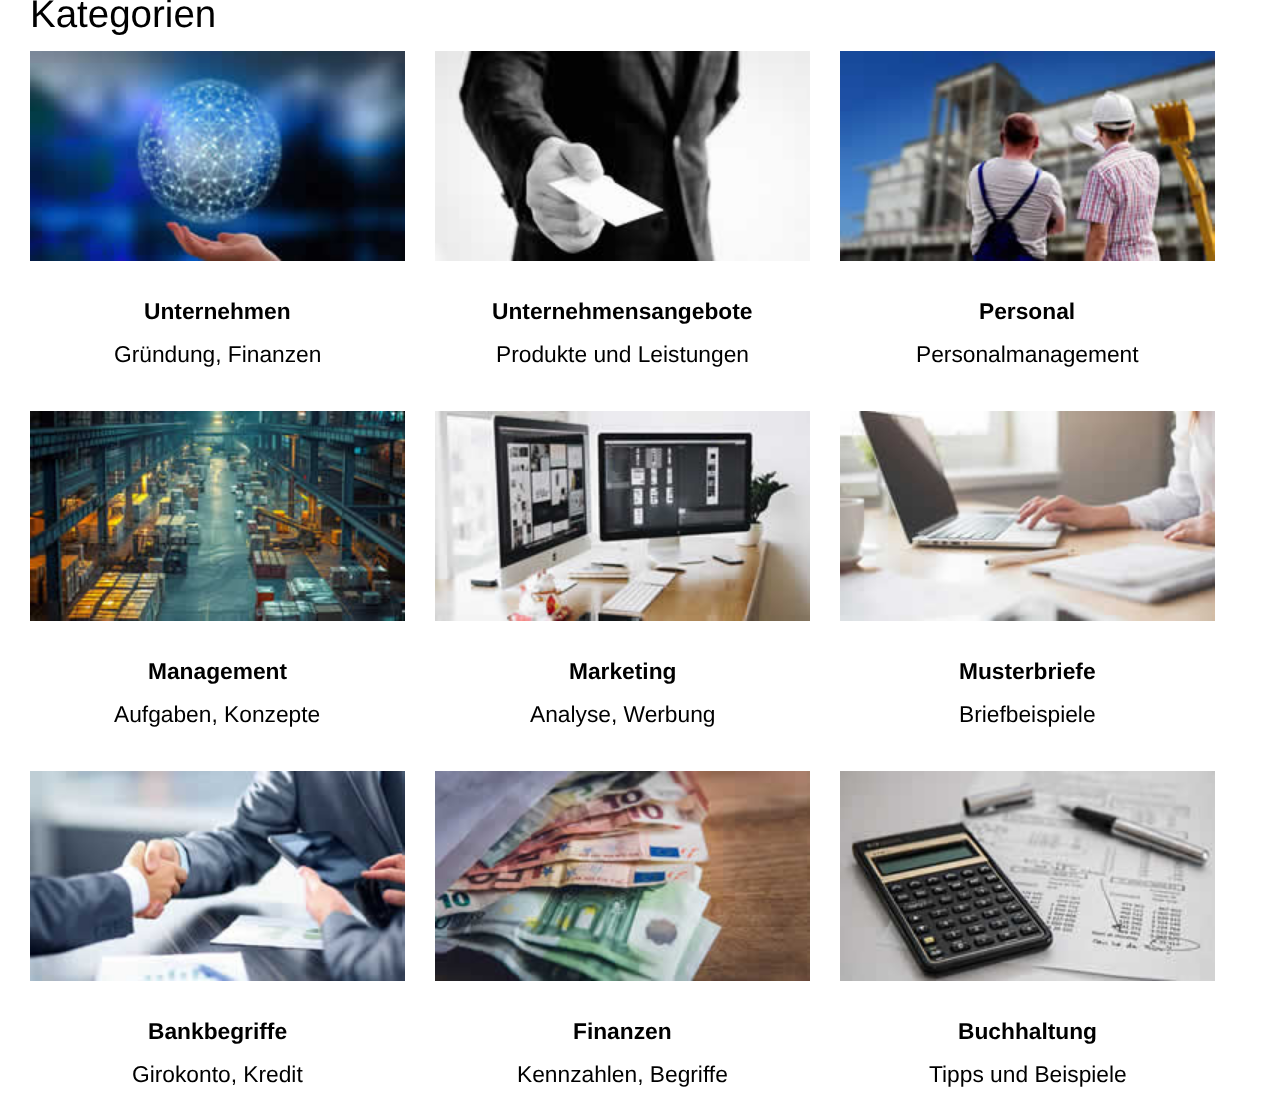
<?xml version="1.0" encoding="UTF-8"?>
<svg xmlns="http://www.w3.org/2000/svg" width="1272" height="1101">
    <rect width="100%" height="100%" fill="#FFFFFF"/>
    <text x="30" y="27" font-family="Liberation Sans" font-size="38.5" fill="#000000">Kategorien</text>
    <image x="30" y="51" width="375" height="210" href="img_01.png"/>
    <text x="144" y="319" font-family="Liberation Sans" font-size="22.75" font-weight="700" fill="#000000">Unternehmen</text>
    <text x="114" y="362" font-family="Liberation Sans" font-size="22.75" fill="#000000">Gründung, Finanzen</text>
    <image x="435" y="51" width="375" height="210" href="img_02.png"/>
    <text x="492" y="319" font-family="Liberation Sans" font-size="22.75" font-weight="700" fill="#000000">Unternehmensangebote</text>
    <text x="496" y="362" font-family="Liberation Sans" font-size="22.75" fill="#000000">Produkte und Leistungen</text>
    <image x="840" y="51" width="375" height="210" href="img_03.png"/>
    <text x="979" y="319" font-family="Liberation Sans" font-size="22.75" font-weight="700" fill="#000000">Personal</text>
    <text x="916" y="362" font-family="Liberation Sans" font-size="22.75" fill="#000000">Personalmanagement</text>
    <image x="30" y="411" width="375" height="210" href="img_04.png"/>
    <text x="148" y="679" font-family="Liberation Sans" font-size="22.75" font-weight="700" fill="#000000">Management</text>
    <text x="114" y="722" font-family="Liberation Sans" font-size="22.75" fill="#000000">Aufgaben, Konzepte</text>
    <image x="435" y="411" width="375" height="210" href="img_05.png"/>
    <text x="569" y="679" font-family="Liberation Sans" font-size="22.75" font-weight="700" fill="#000000">Marketing</text>
    <text x="530" y="722" font-family="Liberation Sans" font-size="22.75" fill="#000000">Analyse, Werbung</text>
    <image x="840" y="411" width="375" height="210" href="img_06.png"/>
    <text x="959" y="679" font-family="Liberation Sans" font-size="22.75" font-weight="700" fill="#000000">Musterbriefe</text>
    <text x="959" y="722" font-family="Liberation Sans" font-size="22.75" fill="#000000">Briefbeispiele</text>
    <image x="30" y="771" width="375" height="210" href="img_07.png"/>
    <text x="148" y="1039" font-family="Liberation Sans" font-size="22.75" font-weight="700" fill="#000000">Bankbegriffe</text>
    <text x="132" y="1082" font-family="Liberation Sans" font-size="22.75" fill="#000000">Girokonto, Kredit</text>
    <image x="435" y="771" width="375" height="210" href="img_08.png"/>
    <text x="573" y="1039" font-family="Liberation Sans" font-size="22.75" font-weight="700" fill="#000000">Finanzen</text>
    <text x="517" y="1082" font-family="Liberation Sans" font-size="22.75" fill="#000000">Kennzahlen, Begriffe</text>
    <image x="840" y="771" width="375" height="210" href="img_09.png"/>
    <text x="958" y="1039" font-family="Liberation Sans" font-size="22.75" font-weight="700" fill="#000000">Buchhaltung</text>
    <text x="929" y="1082" font-family="Liberation Sans" font-size="22.75" fill="#000000">Tipps und Beispiele</text>
</svg>
